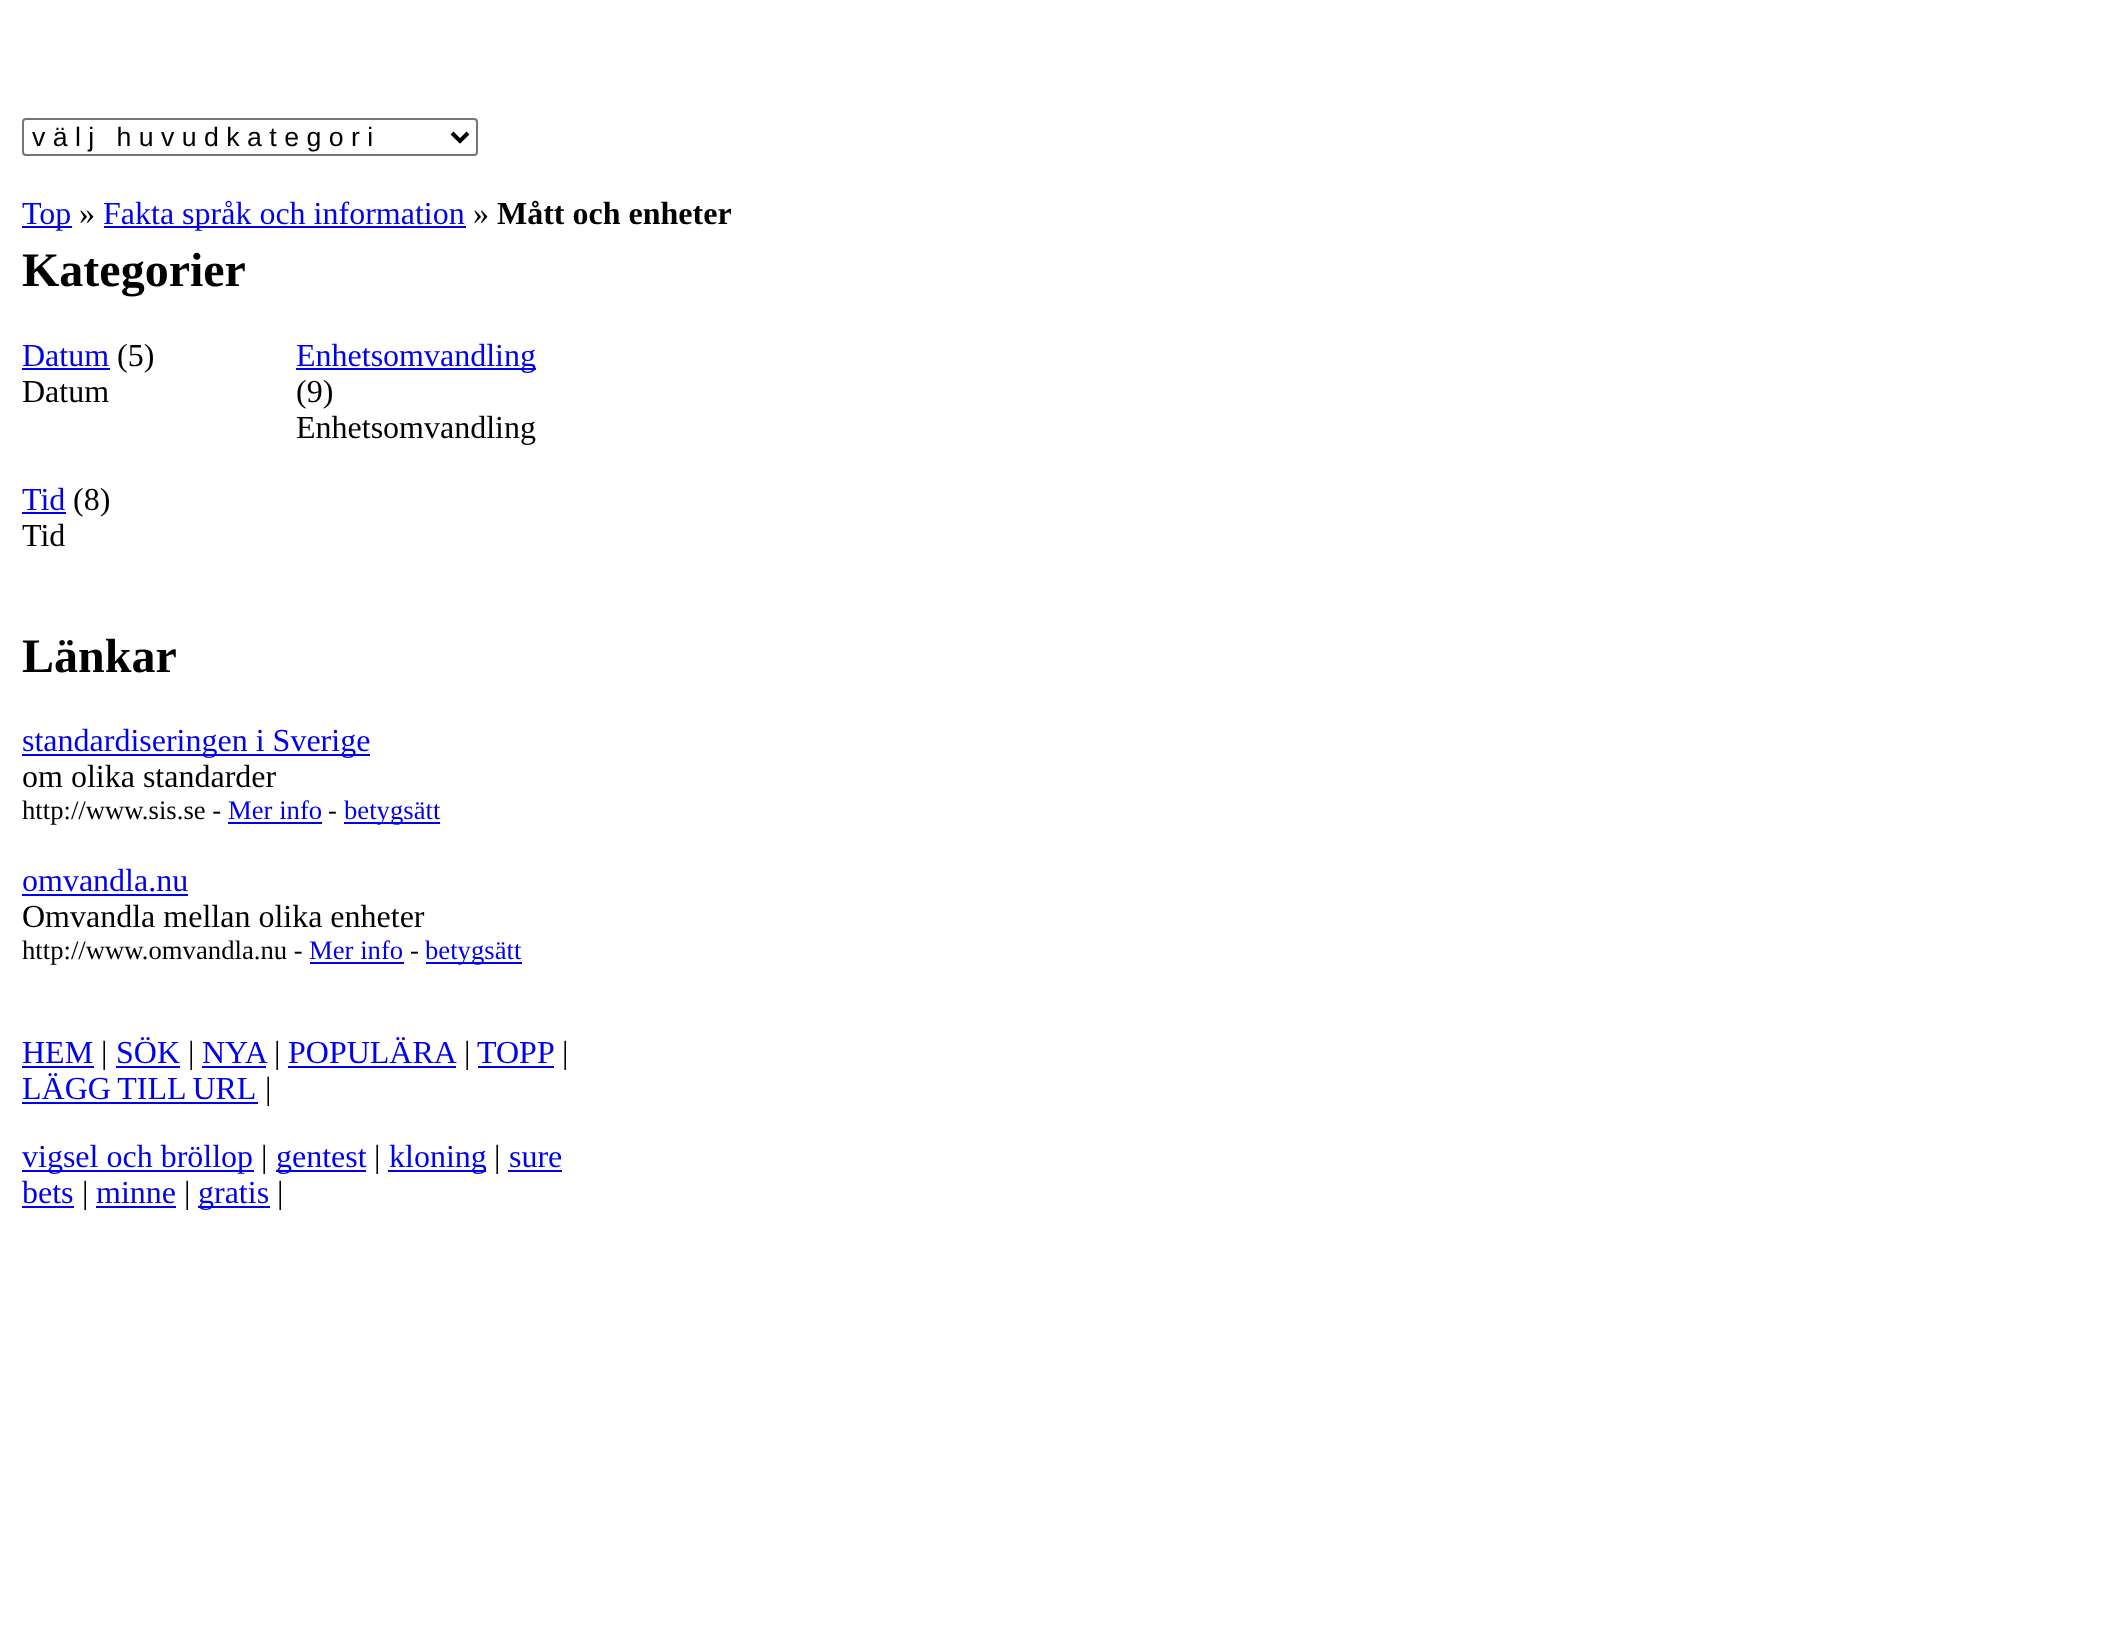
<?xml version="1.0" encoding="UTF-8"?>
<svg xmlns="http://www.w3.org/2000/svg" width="2112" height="1630">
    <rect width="100%" height="100%" fill="#FFFFFF"/>
    <rect x="23" y="119" width="454" height="36" rx="3" fill="none" stroke="#767676" stroke-width="2"/>
    <path d="M 452 133 L 460 141 L 468 133" fill="none" stroke="#000000" stroke-width="4"/>
    <text x="32" y="146" font-family="Liberation Sans" font-size="26.7" fill="#000000" xml:space="preserve">v ä l j   h u v u d k a t e g o r i</text>
    <rect x="22" y="226" width="50" height="2" fill="#0000EE"/>
    <text x="22" y="224" font-family="Liberation Serif" font-size="32" fill="#0000EE">Top</text>
    <text x="79" y="224" font-family="Liberation Serif" font-size="32" fill="#000000">»</text>
    <rect x="104" y="226" width="362" height="2" fill="#0000EE"/>
    <text x="103" y="224" font-family="Liberation Serif" font-size="32" fill="#0000EE">Fakta språk och information</text>
    <text x="473" y="224" font-family="Liberation Serif" font-size="32" fill="#000000">»</text>
    <text x="497" y="224" font-family="Liberation Serif" font-size="32" font-weight="700" fill="#000000">Mått och enheter</text>
    <text x="22" y="286" font-family="Liberation Serif" font-size="48" font-weight="700" fill="#000000">Kategorier</text>
    <text x="22" y="366" font-family="Liberation Serif" font-size="32" fill="#0000EE">Datum</text>
    <rect x="22" y="368" width="88" height="2" fill="#0000EE"/>
    <text x="117" y="366" font-family="Liberation Serif" font-size="32" fill="#000000">(5)</text>
    <text x="22" y="402" font-family="Liberation Serif" font-size="32" fill="#000000">Datum</text>
    <rect x="296" y="368" width="240" height="2" fill="#0000EE"/>
    <text x="296" y="366" font-family="Liberation Serif" font-size="32" fill="#0000EE">Enhetsomvandling</text>
    <text font-family="Liberation Serif" font-size="32" fill="#000000">
        <tspan x="296" y="402">(9)</tspan>
        <tspan x="296" y="438">Enhetsomvandling</tspan>
    </text>
    <text x="22" y="510" font-family="Liberation Serif" font-size="32" fill="#0000EE">Tid</text>
    <rect x="22" y="512" width="44" height="2" fill="#0000EE"/>
    <text x="73" y="510" font-family="Liberation Serif" font-size="32" fill="#000000">(8)</text>
    <text x="22" y="546" font-family="Liberation Serif" font-size="32" fill="#000000">Tid</text>
    <text x="22" y="672" font-family="Liberation Serif" font-size="48" font-weight="700" fill="#000000">Länkar</text>
    <rect x="22" y="754" width="348" height="2" fill="#0000EE"/>
    <text x="22" y="751" font-family="Liberation Serif" font-size="32" fill="#0000EE">standardiseringen i Sverige</text>
    <text x="22" y="787" font-family="Liberation Serif" font-size="32" fill="#000000">om olika standarder</text>
    <text x="22" y="819" font-family="Liberation Serif" font-size="26.7" fill="#000000">http://www.sis.se -</text>
    <text x="228" y="819" font-family="Liberation Serif" font-size="26.7" fill="#0000EE">Mer info</text>
    <rect x="228" y="822" width="94" height="2" fill="#0000EE"/>
    <text x="328" y="819" font-family="Liberation Serif" font-size="26.7" fill="#000000">-</text>
    <rect x="344" y="822" width="96" height="2" fill="#0000EE"/>
    <text x="344" y="819" font-family="Liberation Serif" font-size="26.7" fill="#0000EE">betygsätt</text>
    <text x="22" y="891" font-family="Liberation Serif" font-size="32" fill="#0000EE">omvandla.nu</text>
    <rect x="22" y="894" width="166" height="2" fill="#0000EE"/>
    <text x="22" y="927" font-family="Liberation Serif" font-size="32" fill="#000000">Omvandla mellan olika enheter</text>
    <text x="22" y="959" font-family="Liberation Serif" font-size="26.7" fill="#000000">http://www.omvandla.nu -</text>
    <text x="309" y="959" font-family="Liberation Serif" font-size="26.7" fill="#0000EE">Mer info</text>
    <rect x="310" y="962" width="94" height="2" fill="#0000EE"/>
    <text x="410" y="959" font-family="Liberation Serif" font-size="26.7" fill="#000000">-</text>
    <rect x="426" y="962" width="96" height="2" fill="#0000EE"/>
    <text x="425" y="959" font-family="Liberation Serif" font-size="26.7" fill="#0000EE">betygsätt</text>
    <text x="22" y="1063" font-family="Liberation Serif" font-size="32" fill="#0000EE">HEM</text>
    <rect x="22" y="1066" width="72" height="2" fill="#0000EE"/>
    <text x="101" y="1063" font-family="Liberation Serif" font-size="32" fill="#000000">|</text>
    <text x="116" y="1063" font-family="Liberation Serif" font-size="32" fill="#0000EE">SÖK</text>
    <rect x="116" y="1066" width="64" height="2" fill="#0000EE"/>
    <text x="188" y="1063" font-family="Liberation Serif" font-size="32" fill="#000000">|</text>
    <text x="202" y="1063" font-family="Liberation Serif" font-size="32" fill="#0000EE">NYA</text>
    <rect x="202" y="1066" width="64" height="2" fill="#0000EE"/>
    <text x="274" y="1063" font-family="Liberation Serif" font-size="32" fill="#000000">|</text>
    <text x="288" y="1063" font-family="Liberation Serif" font-size="32" fill="#0000EE">POPULÄRA</text>
    <rect x="288" y="1066" width="168" height="2" fill="#0000EE"/>
    <text x="464" y="1063" font-family="Liberation Serif" font-size="32" fill="#000000">|</text>
    <text x="477" y="1063" font-family="Liberation Serif" font-size="32" fill="#0000EE">TOPP</text>
    <rect x="478" y="1066" width="76" height="2" fill="#0000EE"/>
    <text x="562" y="1063" font-family="Liberation Serif" font-size="32" fill="#000000">|</text>
    <text x="22" y="1099" word-spacing="-1" font-family="Liberation Serif" font-size="32" fill="#0000EE">LÄGG TILL URL</text>
    <rect x="22" y="1102" width="236" height="2" fill="#0000EE"/>
    <text x="265" y="1099" font-family="Liberation Serif" font-size="32" fill="#000000">|</text>
    <rect x="22" y="1170" width="232" height="2" fill="#0000EE"/>
    <text x="22" y="1167" font-family="Liberation Serif" font-size="32" fill="#0000EE">vigsel och bröllop</text>
    <text x="261" y="1167" font-family="Liberation Serif" font-size="32" fill="#000000">|</text>
    <rect x="276" y="1170" width="90" height="2" fill="#0000EE"/>
    <text x="276" y="1167" font-family="Liberation Serif" font-size="32" fill="#0000EE">gentest</text>
    <text x="374" y="1167" font-family="Liberation Serif" font-size="32" fill="#000000">|</text>
    <rect x="388" y="1170" width="98" height="2" fill="#0000EE"/>
    <text x="389" y="1167" font-family="Liberation Serif" font-size="32" fill="#0000EE">kloning</text>
    <text x="494" y="1167" font-family="Liberation Serif" font-size="32" fill="#000000">|</text>
    <text x="509" y="1167" font-family="Liberation Serif" font-size="32" fill="#0000EE">sure</text>
    <rect x="508" y="1170" width="54" height="2" fill="#0000EE"/>
    <text x="22" y="1203" font-family="Liberation Serif" font-size="32" fill="#0000EE">bets</text>
    <rect x="22" y="1206" width="52" height="2" fill="#0000EE"/>
    <text x="82" y="1203" font-family="Liberation Serif" font-size="32" fill="#000000">|</text>
    <text x="96" y="1203" font-family="Liberation Serif" font-size="32" fill="#0000EE">minne</text>
    <rect x="96" y="1206" width="80" height="2" fill="#0000EE"/>
    <text x="184" y="1203" font-family="Liberation Serif" font-size="32" fill="#000000">|</text>
    <rect x="198" y="1206" width="72" height="2" fill="#0000EE"/>
    <text x="198" y="1203" font-family="Liberation Serif" font-size="32" fill="#0000EE">gratis</text>
    <text x="277" y="1203" font-family="Liberation Serif" font-size="32" fill="#000000">|</text>
</svg>
